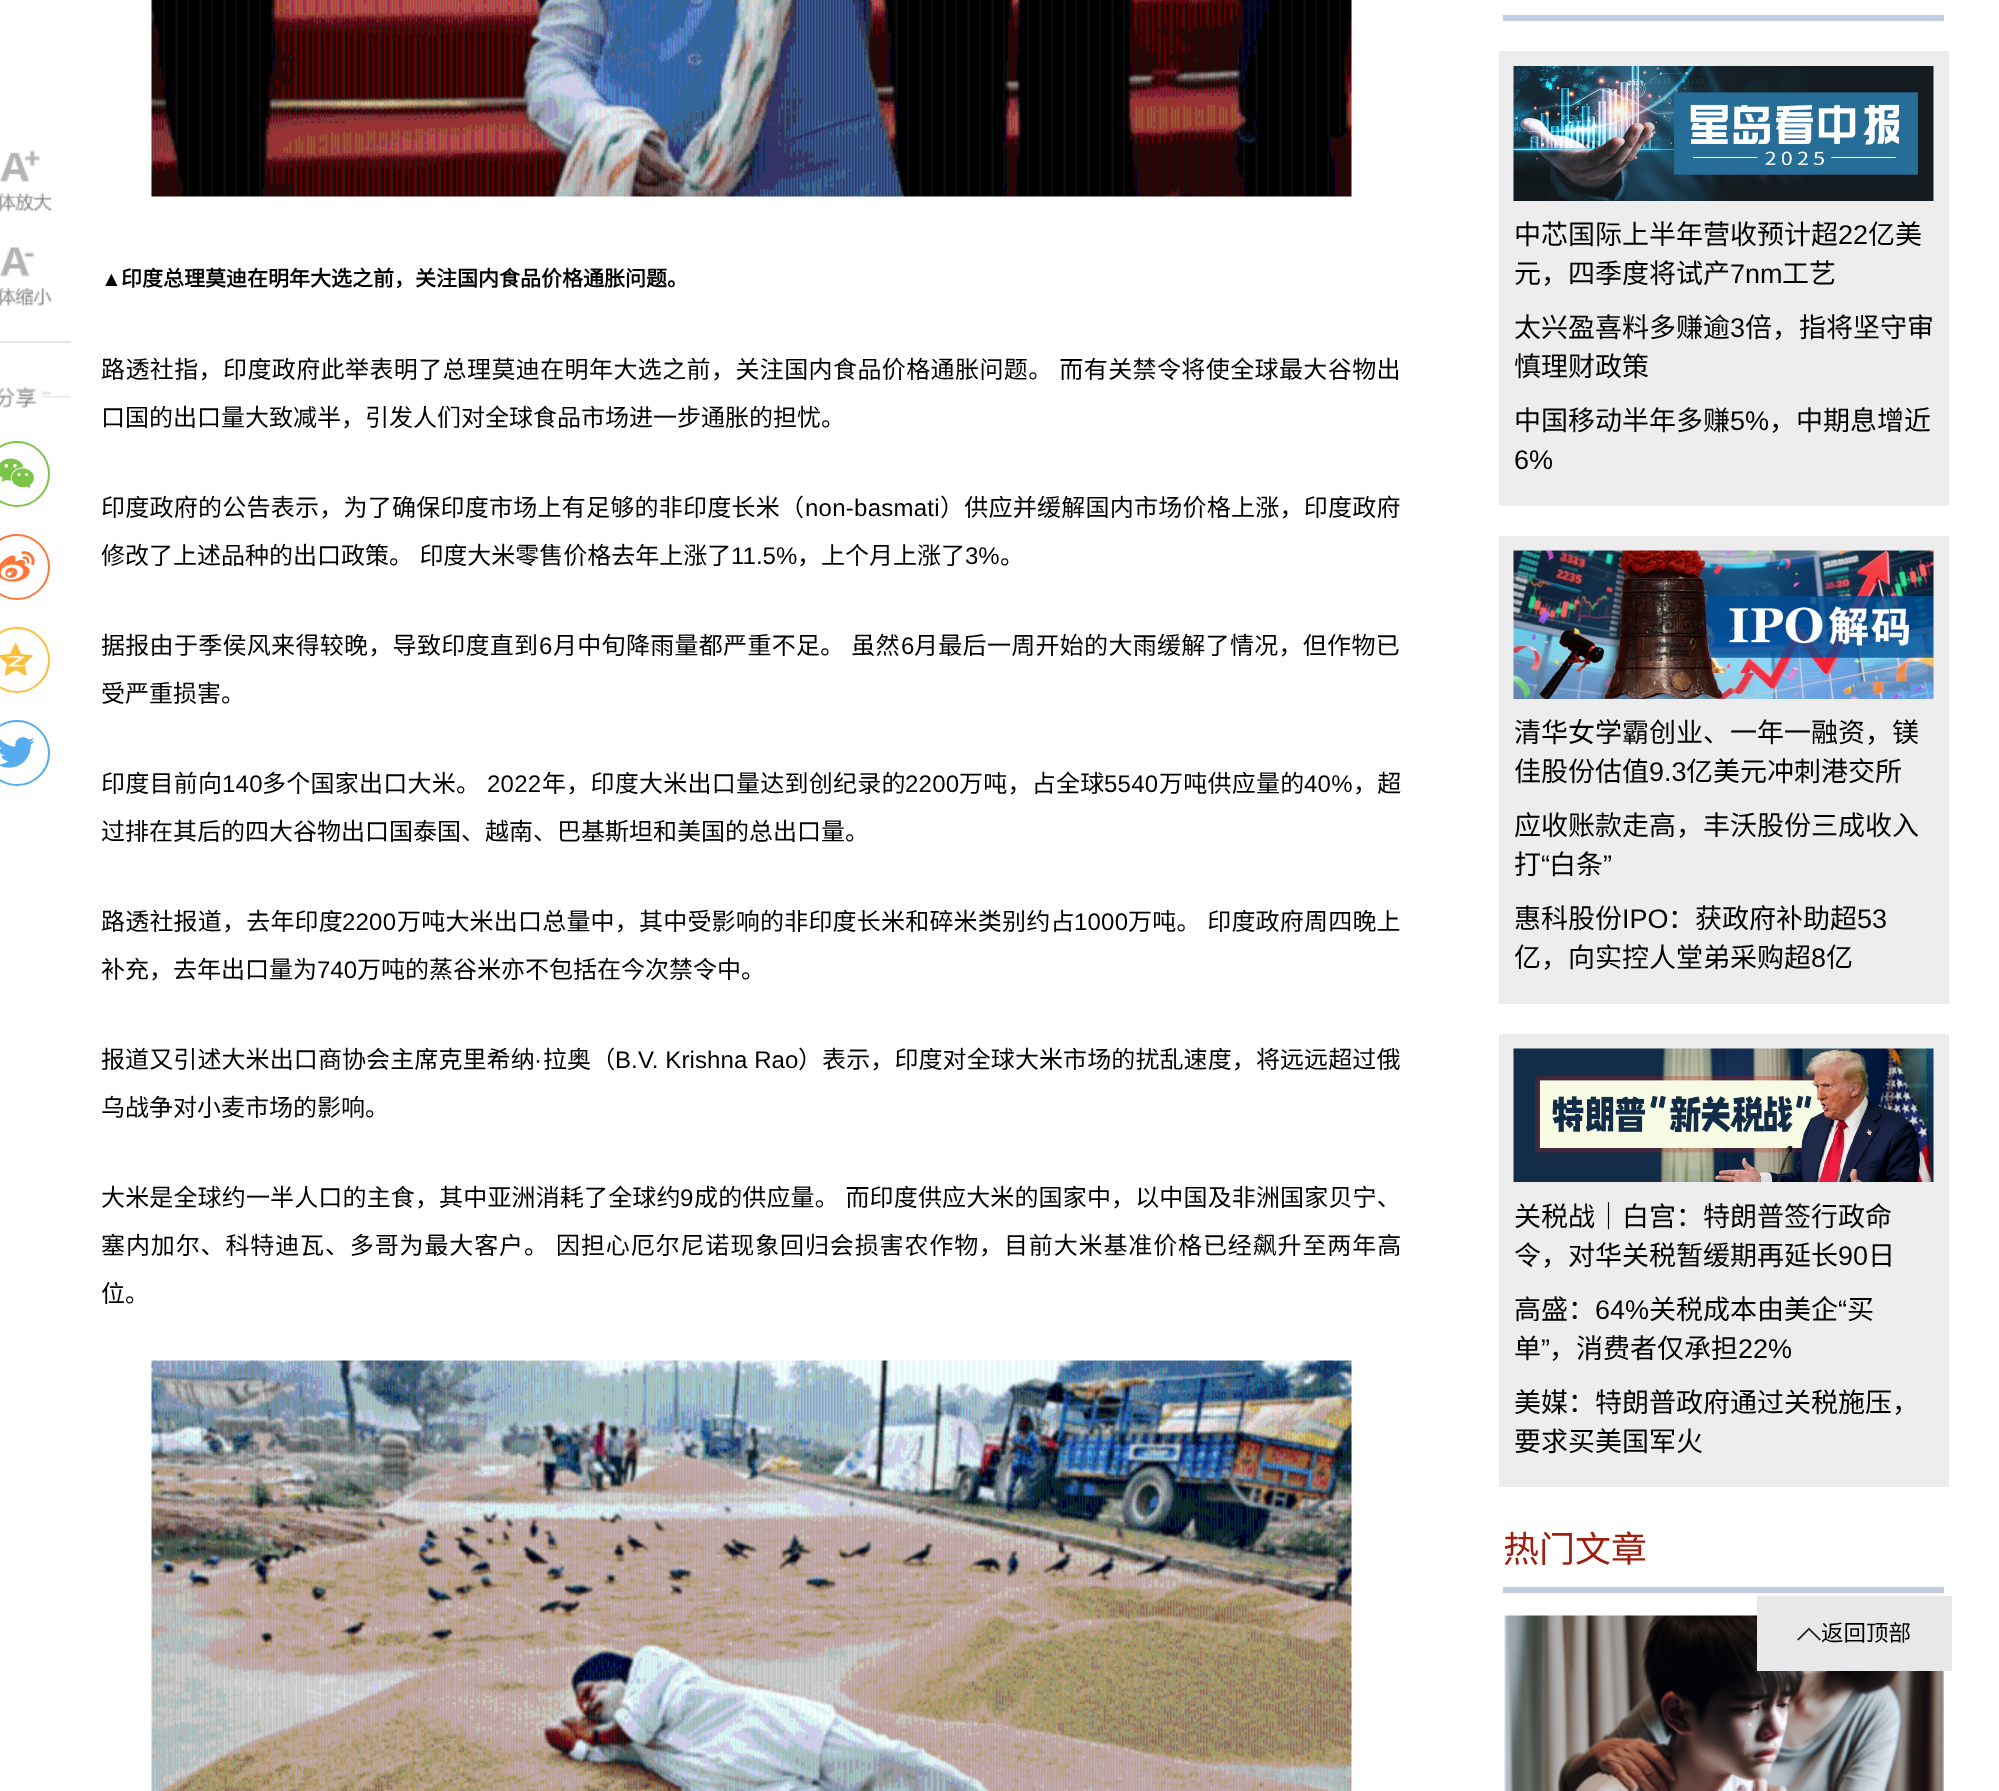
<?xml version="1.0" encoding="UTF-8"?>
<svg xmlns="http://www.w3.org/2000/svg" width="1999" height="1791">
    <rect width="100%" height="100%" fill="#FFFFFF"/>
    <rect x="0" y="341" width="71" height="2" fill="#E6E6E6"/>
    <image x="0" y="150" width="52" height="62" href="img_01.png"/>
    <image x="0" y="247" width="52" height="59" href="img_02.png"/>
    <image x="0" y="387" width="71" height="21" href="img_03.png"/>
    <circle cx="17" cy="474" r="32" fill="none" stroke="#7BC549" stroke-width="2"/>
    <image x="0" y="458" width="34" height="31" href="img_04.png"/>
    <circle cx="17" cy="567" r="32" fill="none" stroke="#FF763B" stroke-width="2"/>
    <image x="0" y="551" width="35" height="31" href="img_05.png"/>
    <circle cx="17" cy="660" r="32" fill="none" stroke="#FDBE3D" stroke-width="2"/>
    <image x="0" y="643" width="33" height="33" href="img_06.png"/>
    <circle cx="17" cy="753" r="32" fill="none" stroke="#55ACEE" stroke-width="2"/>
    <image x="0" y="737" width="35" height="31" href="img_07.png"/>
    <image x="151" y="0" width="1201" height="197" href="img_08.png"/>
    <text x="101" y="286" font-family="Liberation Serif" font-size="21" font-weight="700" fill="#000000">▲</text>
    <text x="121" y="286" font-family="Noto Sans CJK SC" font-size="21" font-weight="700" fill="#000000">印度总理莫迪在明年大选之前，关注国内食品价格通胀问题。</text>
    <text x="101" y="378" word-spacing="1" font-family="Noto Sans CJK SC" font-size="24" letter-spacing="0.4" fill="#000000">路透社指，印度政府此举表明了总理莫迪在明年大选之前，关注国内食品价格通胀问题。 而有关禁令将使全球最大谷物出</text>
    <text x="101" y="426" font-family="Noto Sans CJK SC" font-size="24" fill="#000000">口国的出口量大致减半，引发人们对全球食品市场进一步通胀的担忧。</text>
    <text x="101" y="516" font-family="Noto Sans CJK SC" font-size="24" letter-spacing="0.25" fill="#000000">印度政府的公告表示，为了确保印度市场上有足够的非印度长米（</text>
    <text x="805" y="516" font-family="Liberation Sans" font-size="24" letter-spacing="0.25" fill="#000000">non-basmati</text>
    <text x="940" y="516" font-family="Noto Sans CJK SC" font-size="24" letter-spacing="0.25" fill="#000000">）供应并缓解国内市场价格上涨，印度政府</text>
    <text x="101" y="564" word-spacing="1" font-family="Noto Sans CJK SC" font-size="24" fill="#000000">修改了上述品种的出口政策。 印度大米零售价格去年上涨了</text>
    <text x="731" y="564" font-family="Liberation Sans" font-size="24" fill="#000000">11.5%</text>
    <text x="797" y="564" font-family="Noto Sans CJK SC" font-size="24" fill="#000000">，上个月上涨了</text>
    <text x="965" y="564" font-family="Liberation Sans" font-size="24" fill="#000000">3%</text>
    <text x="1000" y="564" font-family="Noto Sans CJK SC" font-size="24" fill="#000000">。</text>
    <text x="101" y="654" font-family="Noto Sans CJK SC" font-size="24" letter-spacing="0.3" fill="#000000">据报由于季侯风来得较晚，导致印度直到</text>
    <text x="539" y="654" font-family="Liberation Sans" font-size="24" letter-spacing="0.3" fill="#000000">6</text>
    <text x="553" y="654" word-spacing="1" font-family="Noto Sans CJK SC" font-size="24" letter-spacing="0.3" fill="#000000">月中旬降雨量都严重不足。 虽然</text>
    <text x="901" y="654" font-family="Liberation Sans" font-size="24" letter-spacing="0.3" fill="#000000">6</text>
    <text x="914" y="654" font-family="Noto Sans CJK SC" font-size="24" letter-spacing="0.3" fill="#000000">月最后一周开始的大雨缓解了情况，但作物已</text>
    <text x="101" y="702" font-family="Noto Sans CJK SC" font-size="24" fill="#000000">受严重损害。</text>
    <text x="101" y="792" font-family="Noto Sans CJK SC" font-size="24" letter-spacing="0.25" fill="#000000">印度目前向</text>
    <text x="222" y="792" font-family="Liberation Sans" font-size="24" letter-spacing="0.25" fill="#000000">140</text>
    <text x="262" y="792" font-family="Noto Sans CJK SC" font-size="24" letter-spacing="0.25" fill="#000000">多个国家出口大米。</text>
    <text x="487" y="792" font-family="Liberation Sans" font-size="24" letter-spacing="0.25" fill="#000000">2022</text>
    <text x="542" y="792" font-family="Noto Sans CJK SC" font-size="24" letter-spacing="0.25" fill="#000000">年，印度大米出口量达到创纪录的</text>
    <text x="905" y="792" font-family="Liberation Sans" font-size="24" letter-spacing="0.25" fill="#000000">2200</text>
    <text x="959" y="792" font-family="Noto Sans CJK SC" font-size="24" letter-spacing="0.25" fill="#000000">万吨，占全球</text>
    <text x="1104" y="792" font-family="Liberation Sans" font-size="24" letter-spacing="0.25" fill="#000000">5540</text>
    <text x="1159" y="792" font-family="Noto Sans CJK SC" font-size="24" letter-spacing="0.25" fill="#000000">万吨供应量的</text>
    <text x="1304" y="792" font-family="Liberation Sans" font-size="24" letter-spacing="0.25" fill="#000000">40%</text>
    <text x="1353" y="792" font-family="Noto Sans CJK SC" font-size="24" letter-spacing="0.25" fill="#000000">，超</text>
    <text x="101" y="840" font-family="Noto Sans CJK SC" font-size="24" fill="#000000">过排在其后的四大谷物出口国泰国、越南、巴基斯坦和美国的总出口量。</text>
    <text x="101" y="930" font-family="Noto Sans CJK SC" font-size="24" letter-spacing="0.2" fill="#000000">路透社报道，去年印度</text>
    <text x="342" y="930" font-family="Liberation Sans" font-size="24" letter-spacing="0.2" fill="#000000">2200</text>
    <text x="397" y="930" font-family="Noto Sans CJK SC" font-size="24" letter-spacing="0.2" fill="#000000">万吨大米出口总量中，其中受影响的非印度长米和碎米类别约占</text>
    <text x="1074" y="930" font-family="Liberation Sans" font-size="24" letter-spacing="0.2" fill="#000000">1000</text>
    <text x="1128" y="930" word-spacing="1" font-family="Noto Sans CJK SC" font-size="24" letter-spacing="0.2" fill="#000000">万吨。 印度政府周四晚上</text>
    <text x="101" y="978" font-family="Noto Sans CJK SC" font-size="24" fill="#000000">补充，去年出口量为</text>
    <text x="317" y="978" font-family="Liberation Sans" font-size="24" fill="#000000">740</text>
    <text x="357" y="978" font-family="Noto Sans CJK SC" font-size="24" fill="#000000">万吨的蒸谷米亦不包括在今次禁令中。</text>
    <text x="101" y="1068" font-family="Noto Sans CJK SC" font-size="24" letter-spacing="0.1" fill="#000000">报道又引述大米出口商协会主席克里希纳</text>
    <text x="534" y="1068" font-family="Liberation Sans" font-size="24" letter-spacing="0.1" fill="#000000">·</text>
    <text x="543" y="1068" font-family="Noto Sans CJK SC" font-size="24" letter-spacing="0.1" fill="#000000">拉奥（</text>
    <text x="615" y="1068" font-family="Liberation Sans" font-size="24" letter-spacing="0.1" fill="#000000">B.V. Krishna Rao</text>
    <text x="798" y="1068" font-family="Noto Sans CJK SC" font-size="24" letter-spacing="0.1" fill="#000000">）表示，印度对全球大米市场的扰乱速度，将远远超过俄</text>
    <text x="101" y="1116" font-family="Noto Sans CJK SC" font-size="24" fill="#000000">乌战争对小麦市场的影响。</text>
    <text x="101" y="1206" font-family="Noto Sans CJK SC" font-size="24" letter-spacing="0.15" fill="#000000">大米是全球约一半人口的主食，其中亚洲消耗了全球约</text>
    <text x="680" y="1206" font-family="Liberation Sans" font-size="24" letter-spacing="0.15" fill="#000000">9</text>
    <text x="694" y="1206" word-spacing="1" font-family="Noto Sans CJK SC" font-size="24" letter-spacing="0.15" fill="#000000">成的供应量。 而印度供应大米的国家中，以中国及非洲国家贝宁、</text>
    <text x="101" y="1254" word-spacing="1" font-family="Noto Sans CJK SC" font-size="24" letter-spacing="0.88" fill="#000000">塞内加尔、科特迪瓦、多哥为最大客户。 因担心厄尔尼诺现象回归会损害农作物，目前大米基准价格已经飙升至两年高</text>
    <text x="101" y="1302" font-family="Noto Sans CJK SC" font-size="24" fill="#000000">位。</text>
    <image x="151" y="1360" width="1201" height="431" href="img_09.png"/>
    <rect x="1503" y="15" width="441" height="6" fill="#C1CCDF"/>
    <rect x="1499" y="51" width="450" height="455" fill="#EDEDED"/>
    <image x="1513" y="66" width="421" height="135" href="img_10.png"/>
    <text x="1514" y="244" font-family="Noto Sans CJK SC" font-size="27" fill="#000000">中芯国际上半年营收预计超</text>
    <text x="1838" y="244" font-family="Liberation Sans" font-size="27" fill="#000000">22</text>
    <text x="1868" y="244" font-family="Noto Sans CJK SC" font-size="27" fill="#000000">亿美</text>
    <text x="1514" y="283" font-family="Noto Sans CJK SC" font-size="27" fill="#000000">元，四季度将试产</text>
    <text x="1730" y="283" font-family="Liberation Sans" font-size="27" fill="#000000">7nm</text>
    <text x="1782" y="283" font-family="Noto Sans CJK SC" font-size="27" fill="#000000">工艺</text>
    <text x="1514" y="337" font-family="Noto Sans CJK SC" font-size="27" fill="#000000">太兴盈喜料多赚逾</text>
    <text x="1730" y="337" font-family="Liberation Sans" font-size="27" fill="#000000">3</text>
    <text x="1745" y="337" font-family="Noto Sans CJK SC" font-size="27" fill="#000000">倍，指将坚守审</text>
    <text x="1514" y="376" font-family="Noto Sans CJK SC" font-size="27" fill="#000000">慎理财政策</text>
    <text x="1514" y="430" font-family="Noto Sans CJK SC" font-size="27" fill="#000000">中国移动半年多赚</text>
    <text x="1730" y="430" font-family="Liberation Sans" font-size="27" fill="#000000">5%</text>
    <text x="1769" y="430" font-family="Noto Sans CJK SC" font-size="27" fill="#000000">，中期息增近</text>
    <text x="1514" y="469" font-family="Liberation Sans" font-size="27" fill="#000000">6%</text>
    <rect x="1499" y="536" width="450" height="468" fill="#EDEDED"/>
    <image x="1513" y="550" width="421" height="149" href="img_11.png"/>
    <text font-family="Noto Sans CJK SC" font-size="27" fill="#000000">
        <tspan x="1514" y="742">清华女学霸创业、一年一融资，镁</tspan>
        <tspan x="1514" y="781">佳股份估值</tspan>
    </text>
    <text x="1649" y="781" font-family="Liberation Sans" font-size="27" fill="#000000">9.3</text>
    <text x="1686" y="781" font-family="Noto Sans CJK SC" font-size="27" fill="#000000">亿美元冲刺港交所</text>
    <text font-family="Noto Sans CJK SC" font-size="27" fill="#000000">
        <tspan x="1514" y="835">应收账款走高，丰沃股份三成收入</tspan>
        <tspan x="1514" y="874">打</tspan>
    </text>
    <text x="1541" y="874" font-family="Liberation Sans" font-size="27" fill="#000000">“</text>
    <text x="1549" y="874" font-family="Noto Sans CJK SC" font-size="27" fill="#000000">白条</text>
    <text x="1603" y="874" font-family="Liberation Sans" font-size="27" fill="#000000">”</text>
    <text x="1514" y="928" font-family="Noto Sans CJK SC" font-size="27" fill="#000000">惠科股份</text>
    <text x="1622" y="928" font-family="Liberation Sans" font-size="27" fill="#000000">IPO</text>
    <text x="1668" y="928" font-family="Noto Sans CJK SC" font-size="27" fill="#000000">：获政府补助超</text>
    <text x="1857" y="928" font-family="Liberation Sans" font-size="27" fill="#000000">53</text>
    <text x="1514" y="967" font-family="Noto Sans CJK SC" font-size="27" fill="#000000">亿，向实控人堂弟采购超</text>
    <text x="1811" y="967" font-family="Liberation Sans" font-size="27" fill="#000000">8</text>
    <text x="1826" y="967" font-family="Noto Sans CJK SC" font-size="27" fill="#000000">亿</text>
    <rect x="1499" y="1034" width="450" height="453" fill="#EDEDED"/>
    <image x="1513" y="1048" width="421" height="134" href="img_12.png"/>
    <text font-family="Noto Sans CJK SC" font-size="27" fill="#000000">
        <tspan x="1514" y="1226">关税战｜白宫：特朗普签行政命</tspan>
        <tspan x="1514" y="1265">令，对华关税暂缓期再延长</tspan>
    </text>
    <text x="1838" y="1265" font-family="Liberation Sans" font-size="27" fill="#000000">90</text>
    <text x="1868" y="1265" font-family="Noto Sans CJK SC" font-size="27" fill="#000000">日</text>
    <text x="1514" y="1319" font-family="Noto Sans CJK SC" font-size="27" fill="#000000">高盛：</text>
    <text x="1595" y="1319" font-family="Liberation Sans" font-size="27" fill="#000000">64%</text>
    <text x="1649" y="1319" font-family="Noto Sans CJK SC" font-size="27" fill="#000000">关税成本由美企</text>
    <text x="1838" y="1319" font-family="Liberation Sans" font-size="27" fill="#000000">“</text>
    <text x="1847" y="1319" font-family="Noto Sans CJK SC" font-size="27" fill="#000000">买</text>
    <text x="1514" y="1358" font-family="Noto Sans CJK SC" font-size="27" fill="#000000">单</text>
    <text x="1541" y="1358" font-family="Liberation Sans" font-size="27" fill="#000000">”</text>
    <text x="1549" y="1358" font-family="Noto Sans CJK SC" font-size="27" fill="#000000">，消费者仅承担</text>
    <text x="1738" y="1358" font-family="Liberation Sans" font-size="27" fill="#000000">22%</text>
    <text font-family="Noto Sans CJK SC" font-size="27" fill="#000000">
        <tspan x="1514" y="1412">美媒：特朗普政府通过关税施压，</tspan>
        <tspan x="1514" y="1451">要求买美国军火</tspan>
    </text>
    <rect x="1503" y="1587" width="441" height="6" fill="#C1CCDF"/>
    <text x="1503" y="1562" font-family="Noto Sans CJK SC" font-size="36" fill="#A01C0E">热门文章</text>
    <image x="1504" y="1615" width="440" height="176" href="img_13.png"/>
    <rect x="1757" y="1596" width="195" height="75" fill="#E8E8EA"/>
    <path d="M 1819.5 1640.5 L 1821 1639.5 L 1809 1627.5 L 1797 1639.5 L 1798.5 1640.5 L 1809 1630 Z" fill="#232323"/>
    <text x="1821" y="1641" font-family="Noto Sans CJK SC" font-size="22.5" fill="#000000">返回顶部</text>
</svg>
